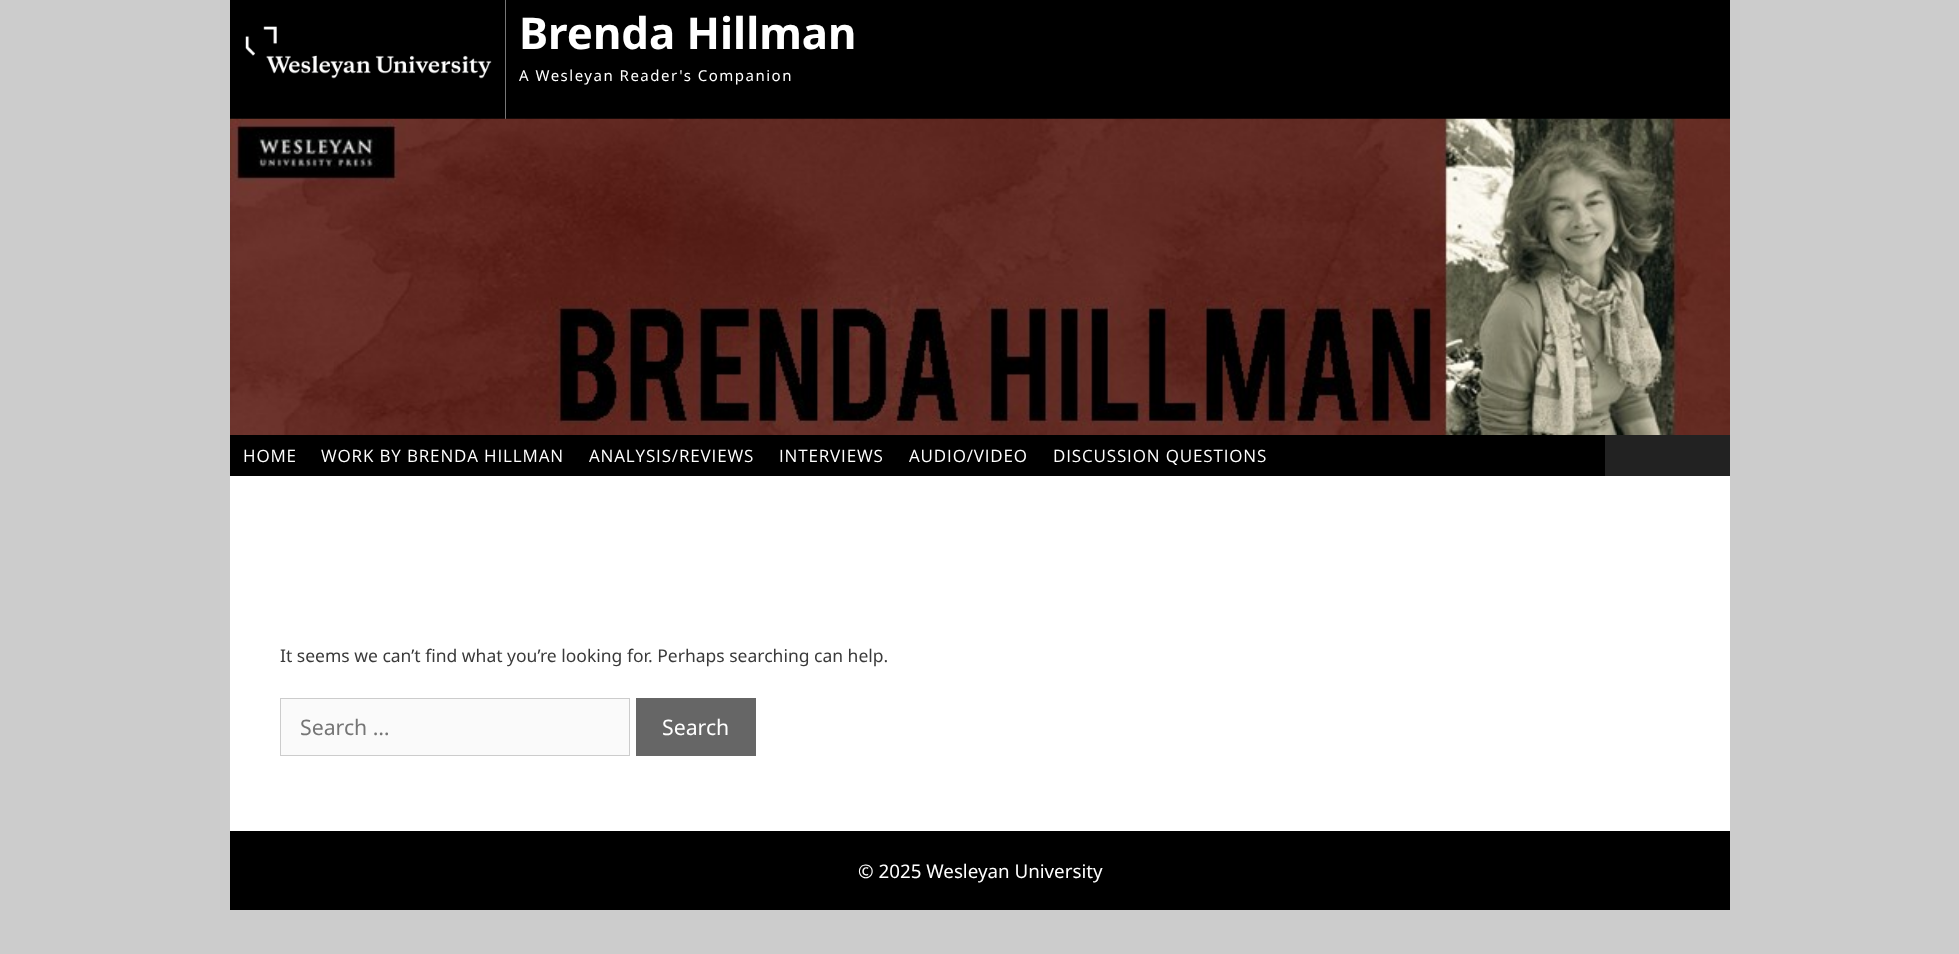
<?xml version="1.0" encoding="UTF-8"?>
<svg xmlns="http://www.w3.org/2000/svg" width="1959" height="954">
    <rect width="100%" height="100%" fill="#CCCCCC"/>
    <rect x="230" y="0" width="1500" height="119" fill="#000000"/>
    <image x="245" y="26" width="247" height="53" href="img_01.png"/>
    <rect x="505" y="0" width="1" height="119" fill="#777777"/>
    <text x="519" y="49" font-family="Noto Sans" font-size="43.75" font-weight="700" fill="#FFFFFF">Brenda Hillman</text>
    <text x="519" y="81" font-family="Noto Sans" font-size="15" letter-spacing="1.5" fill="#FFFFFF">A Wesleyan Reader's Companion</text>
    <image x="230" y="118" width="1500" height="317" href="img_02.png"/>
    <rect x="1605" y="435" width="125" height="41" fill="#222222"/>
    <rect x="230" y="435" width="1375" height="41" fill="#000000"/>
    <text x="243" y="462" font-family="Open Sans" font-size="17" letter-spacing="0.85" fill="#FFFFFF">HOME</text>
    <text x="321" y="462" font-family="Open Sans" font-size="17" letter-spacing="0.85" fill="#FFFFFF">WORK BY BRENDA HILLMAN</text>
    <text x="589" y="462" font-family="Open Sans" font-size="17" letter-spacing="0.85" fill="#FFFFFF">ANALYSIS/REVIEWS</text>
    <text x="779" y="462" font-family="Open Sans" font-size="17" letter-spacing="0.85" fill="#FFFFFF">INTERVIEWS</text>
    <text x="909" y="462" font-family="Open Sans" font-size="17" letter-spacing="0.85" fill="#FFFFFF">AUDIO/VIDEO</text>
    <text x="1053" y="462" font-family="Open Sans" font-size="17" letter-spacing="0.85" fill="#FFFFFF">DISCUSSION QUESTIONS</text>
    <rect x="230" y="476" width="1500" height="355" fill="#FFFFFF"/>
    <text x="280" y="662" font-family="Noto Sans" font-size="17.5" fill="#3A3A3A">It seems we can’t find what you’re looking for. Perhaps searching can help.</text>
    <rect x="280.5" y="698.5" width="349" height="57" fill="#FAFAFA" stroke="#CCCCCC"/>
    <text x="300" y="735" font-family="Noto Sans" font-size="21.25" fill="#757575">Search …</text>
    <rect x="636" y="698" width="120" height="58" fill="#666666"/>
    <text x="662" y="735" font-family="Noto Sans" font-size="21.25" fill="#FFFFFF">Search</text>
    <rect x="230" y="831" width="1500" height="79" fill="#000000"/>
    <text x="858" y="878" font-family="Noto Sans" font-size="18.75" fill="#FFFFFF">© 2025 Wesleyan University</text>
</svg>
